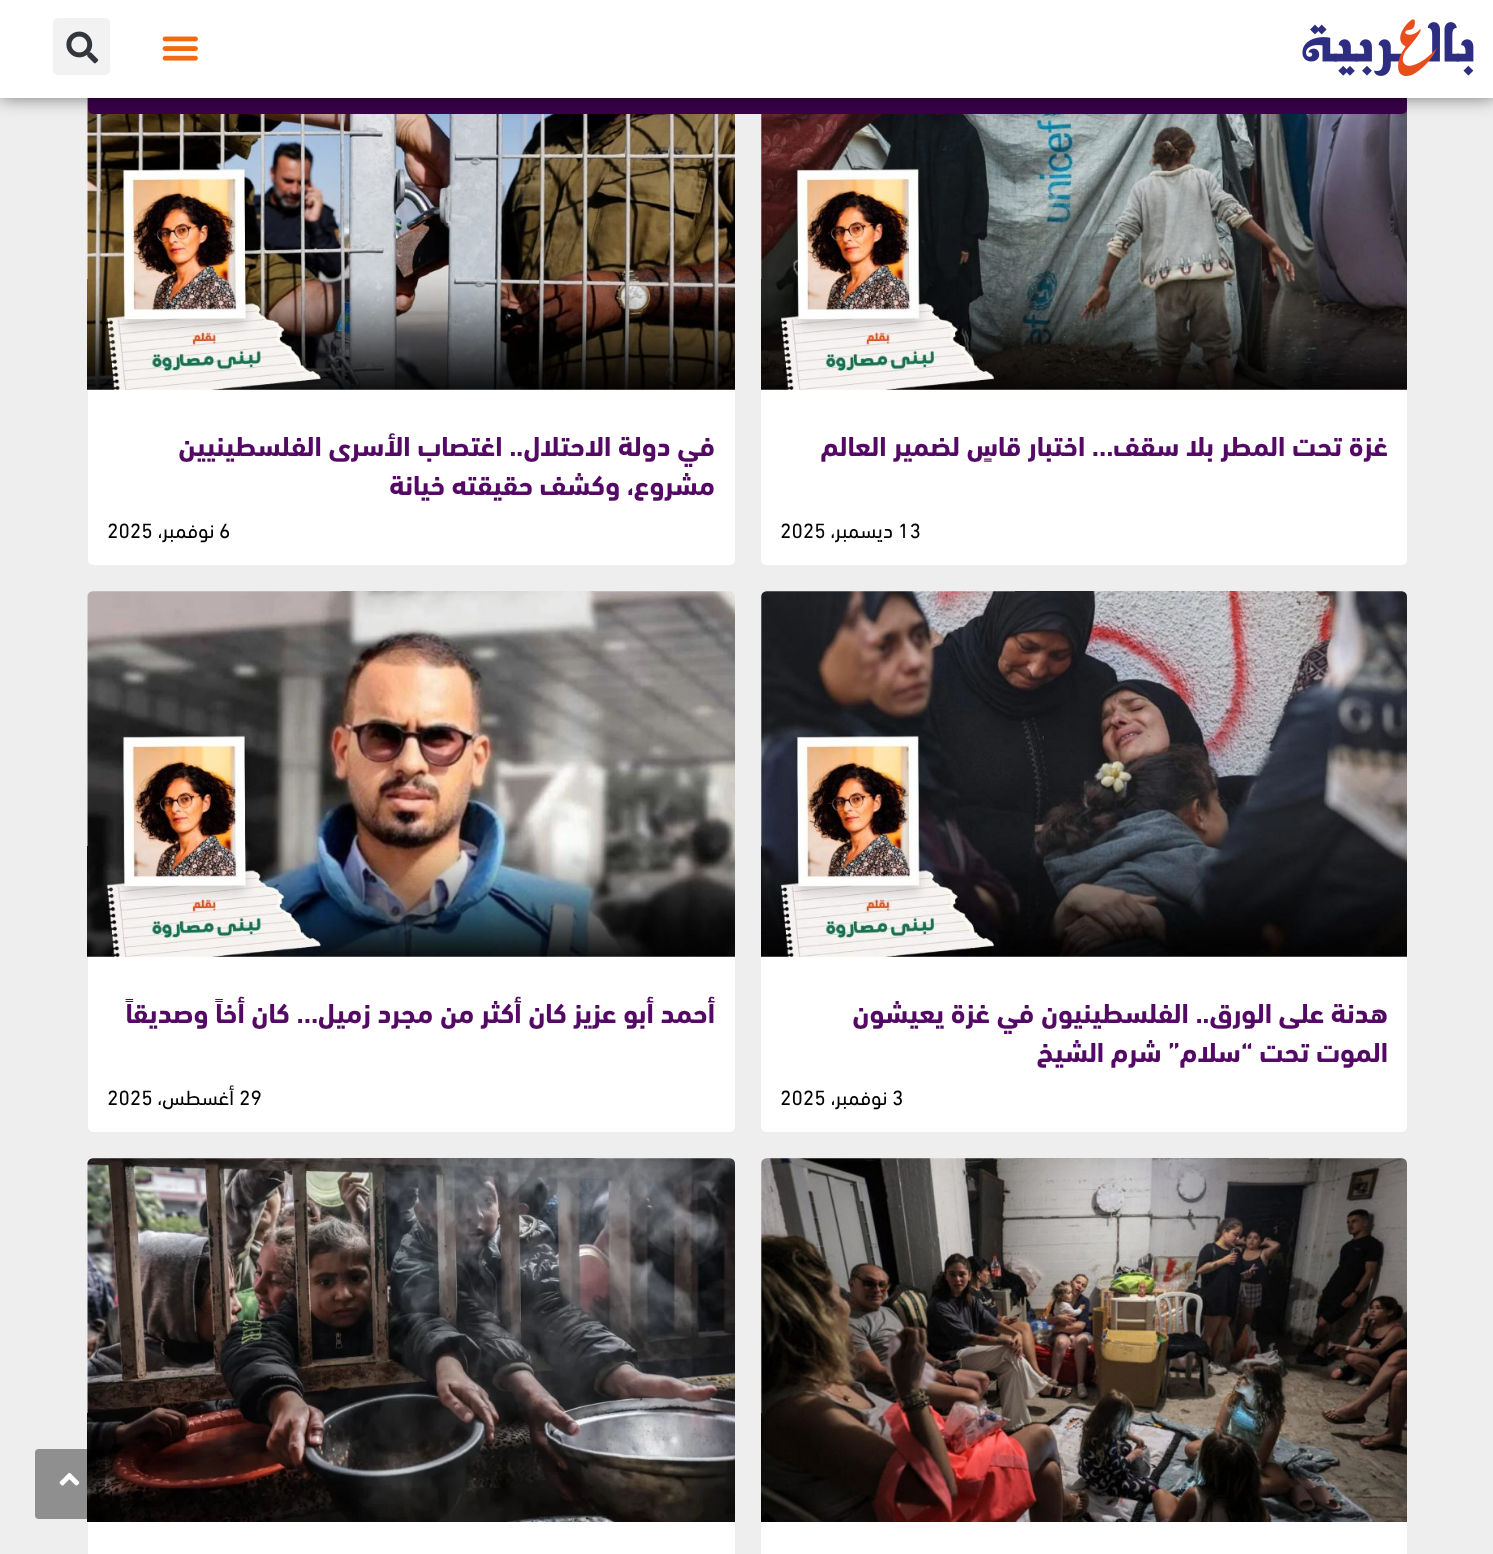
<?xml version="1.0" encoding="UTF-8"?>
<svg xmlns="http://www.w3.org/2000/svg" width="1493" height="1554">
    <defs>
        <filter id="blur1" x="-50%" y="-200%" width="200%" height="500%"><feGaussianBlur stdDeviation="9"/></filter>
    </defs>
    <rect width="100%" height="100%" fill="#EEEEEE"/>
    <rect x="761" y="25" width="646" height="540" rx="5" fill="#FFFFFF"/>
    <image x="761" y="109" width="646" height="281" href="img_04.png"/>
    <rect x="88" y="25" width="647" height="540" rx="5" fill="#FFFFFF"/>
    <image x="87" y="98" width="648" height="292" href="img_05.png"/>
    <rect x="88" y="0" width="1319" height="114" rx="5" fill="#390049"/>
    <rect x="0" y="0" width="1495" height="98" fill="#000000" fill-opacity="0.5" filter="url(#blur1)"/>
    <rect x="0" y="0" width="1493" height="98" fill="#FFFFFF"/>
    <image x="1302" y="19" width="172" height="57" href="img_01.png"/>
    <image x="162" y="36" width="36" height="25" href="img_02.png"/>
    <rect x="53" y="18" width="57" height="57" rx="5" fill="#F2F2F2"/>
    <image x="66" y="31" width="33" height="33" href="img_03.png"/>
    <text x="1388" y="456" font-family="'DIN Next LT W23'" font-size="28" font-weight="700" direction="rtl" fill="#540A65">غزة تحت المطر بلا سقف… اختبار قاسٍ لضمير العالم</text>
    <text x="898" y="538" font-family="'DIN Next LT W23'" font-size="21" fill="#000000">13</text>
    <text x="893" y="538" font-family="'DIN Next LT W23'" font-size="21" direction="rtl" fill="#000000">ديسمبر،</text>
    <text x="780" y="538" font-family="'DIN Next LT W23'" font-size="21" fill="#000000">2025</text>
    <text font-family="'DIN Next LT W23'" font-size="28" font-weight="700" direction="rtl" fill="#540A65">
        <tspan x="715" y="456">في دولة الاحتلال.. اغتصاب الأسرى الفلسطينيين</tspan>
        <tspan x="715" y="495">مشروع، وكشف حقيقته خيانة</tspan>
    </text>
    <text x="219" y="538" font-family="'DIN Next LT W23'" font-size="21" fill="#000000">6</text>
    <text x="214" y="538" font-family="'DIN Next LT W23'" font-size="21" direction="rtl" fill="#000000">نوفمبر،</text>
    <text x="107" y="538" font-family="'DIN Next LT W23'" font-size="21" fill="#000000">2025</text>
    <rect x="761" y="592" width="646" height="540" rx="5" fill="#FFFFFF"/>
    <image x="761" y="591" width="646" height="366" href="img_06.png"/>
    <text font-family="'DIN Next LT W23'" font-size="28" font-weight="700" direction="rtl" fill="#540A65">
        <tspan x="1388" y="1023">هدنة على الورق.. الفلسطينيون في غزة يعيشون</tspan>
        <tspan x="1388" y="1062">الموت تحت “سلام” شرم الشيخ</tspan>
    </text>
    <text x="892" y="1105" font-family="'DIN Next LT W23'" font-size="21" fill="#000000">3</text>
    <text x="887" y="1105" font-family="'DIN Next LT W23'" font-size="21" direction="rtl" fill="#000000">نوفمبر،</text>
    <text x="780" y="1105" font-family="'DIN Next LT W23'" font-size="21" fill="#000000">2025</text>
    <rect x="88" y="592" width="647" height="540" rx="5" fill="#FFFFFF"/>
    <image x="87" y="591" width="648" height="366" href="img_07.png"/>
    <text x="715" y="1023" font-family="'DIN Next LT W23'" font-size="28" font-weight="700" direction="rtl" fill="#540A65">أحمد أبو عزيز كان أكثر من مجرد زميل… كان أخاً وصديقاً</text>
    <text x="239" y="1105" font-family="'DIN Next LT W23'" font-size="21" fill="#000000">29</text>
    <text x="234" y="1105" font-family="'DIN Next LT W23'" font-size="21" direction="rtl" fill="#000000">أغسطس،</text>
    <text x="107" y="1105" font-family="'DIN Next LT W23'" font-size="21" fill="#000000">2025</text>
    <rect x="761" y="1159" width="646" height="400" rx="5" fill="#FFFFFF"/>
    <image x="761" y="1158" width="646" height="364" href="img_08.png"/>
    <rect x="88" y="1159" width="647" height="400" rx="5" fill="#FFFFFF"/>
    <image x="87" y="1158" width="648" height="364" href="img_09.png"/>
    <rect x="35" y="1449" width="70" height="70" rx="4" fill="#000000" fill-opacity="0.4"/>
    <image x="59" y="1472" width="21" height="14" href="img_10.png"/>
</svg>
